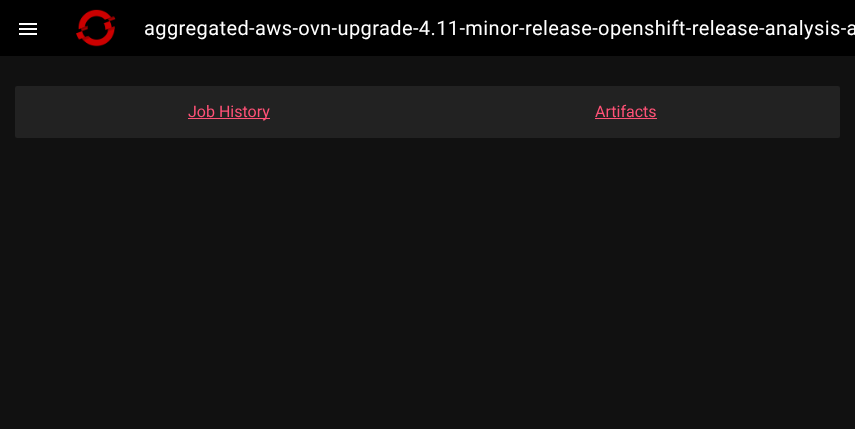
<?xml version="1.0" encoding="UTF-8"?>
<svg xmlns="http://www.w3.org/2000/svg" width="855" height="429">
    <rect width="100%" height="100%" fill="#111111"/>
    <rect x="0" y="0" width="855" height="56" fill="#000000"/>
    <image x="19" y="23" width="18" height="12" href="img_01.png"/>
    <image x="76" y="9" width="40" height="38" href="img_02.png"/>
    <text x="144" y="35" font-family="Roboto" font-size="20" letter-spacing="0.4" fill="#FFFFFF">aggregated-aws-ovn-upgrade-4.11-minor-release-openshift-release-analysis-a</text>
    <rect x="15" y="86" width="825" height="52" rx="2" fill="#222222"/>
    <rect x="188" y="118" width="82" height="1" fill="#FF5277"/>
    <text x="188" y="117" font-family="Roboto" font-size="16" fill="#FF5277">Job History</text>
    <text x="595" y="117" font-family="Roboto" font-size="16" fill="#FF5277">Artifacts</text>
    <rect x="595" y="118" width="62" height="1" fill="#FF5277"/>
</svg>
